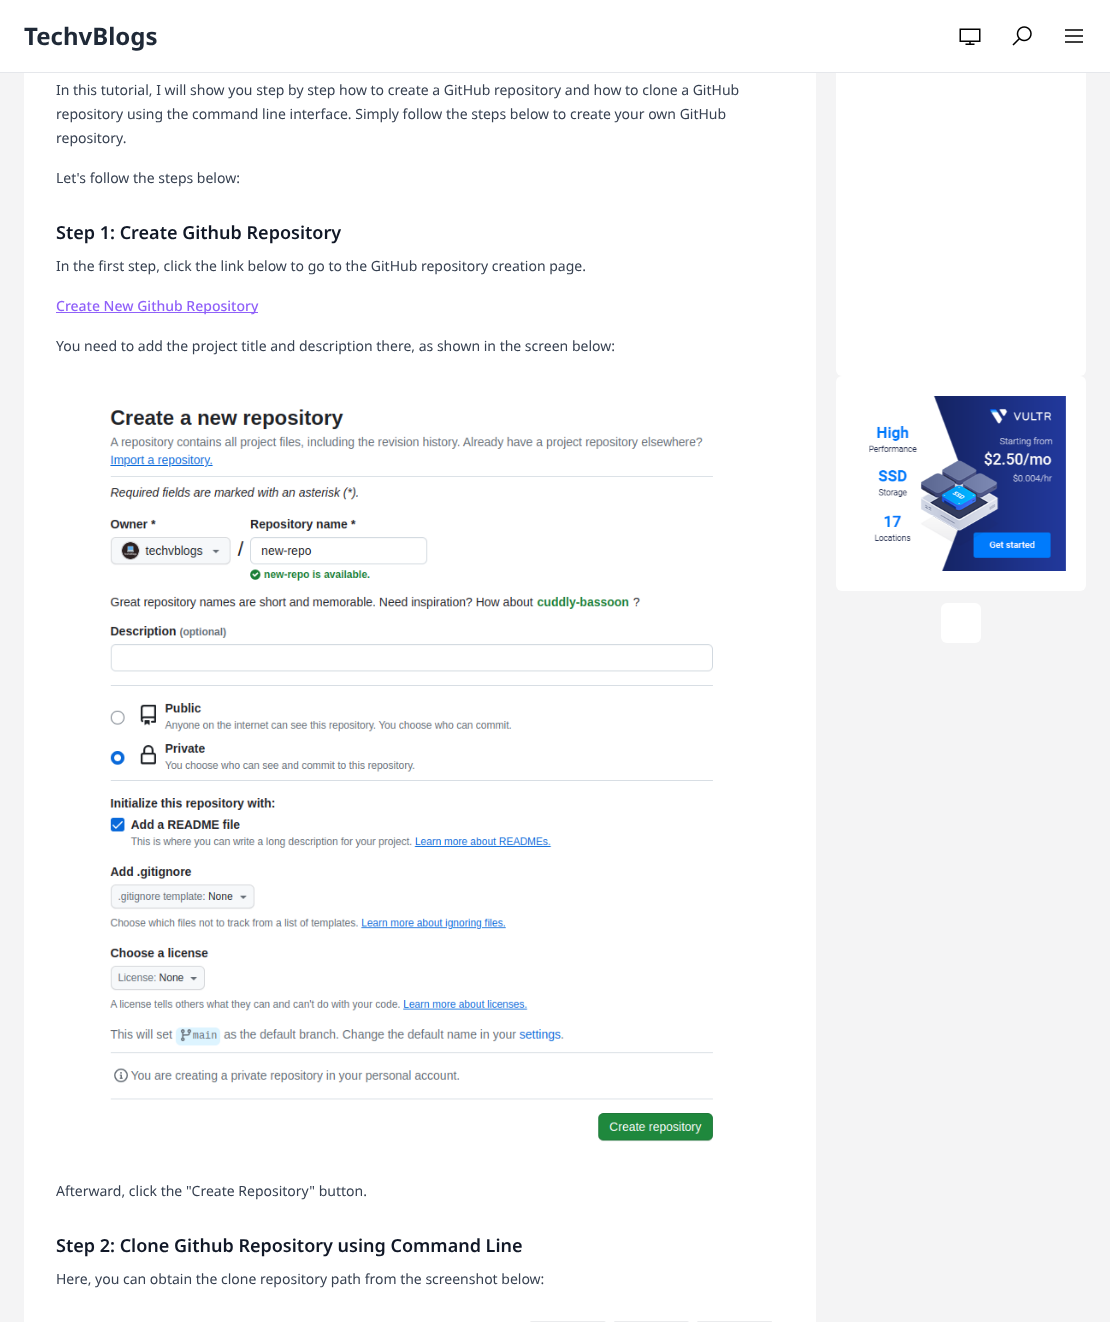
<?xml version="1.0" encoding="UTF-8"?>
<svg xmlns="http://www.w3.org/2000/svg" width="1110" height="1322">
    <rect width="100%" height="100%" fill="#F4F4F5"/>
    <rect x="836" y="56" width="250" height="320" rx="6" fill="#FFFFFF"/>
    <rect x="0" y="0" width="1110" height="72" fill="#FFFFFF"/>
    <rect x="0" y="72" width="1110" height="1" fill="#E5E7EB"/>
    <text x="24" y="45" font-family="Noto Sans" font-size="24" font-weight="700" fill="#1F2937">TechvBlogs</text>
    <image x="959" y="28" width="22" height="17" href="img_01.png"/>
    <image x="1012" y="26" width="20" height="20" href="img_02.png"/>
    <image x="1065" y="29" width="18" height="14" href="img_03.png"/>
    <rect x="24" y="73" width="792" height="1249" fill="#FFFFFF"/>
    <text font-family="Noto Sans" font-size="14" fill="#374151">
        <tspan x="56" y="95">In this tutorial, I will show you step by step how to create a GitHub repository and how to clone a GitHub</tspan>
        <tspan x="56" y="119">repository using the command line interface. Simply follow the steps below to create your own GitHub</tspan>
        <tspan x="56" y="143">repository.</tspan>
    </text>
    <text x="56" y="183" font-family="Noto Sans" font-size="14" fill="#374151">Let's follow the steps below:</text>
    <text x="56" y="239" font-family="Noto Sans" font-size="18" font-weight="600" fill="#111827">Step 1: Create Github Repository</text>
    <text x="56" y="271" font-family="Noto Sans" font-size="14" fill="#374151">In the first step, click the link below to go to the GitHub repository creation page.</text>
    <rect x="56" y="312" width="202" height="1" fill="#9061F9"/>
    <text x="56" y="311" font-family="Noto Sans" font-size="14" font-weight="500" fill="#9061F9">Create New Github Repository</text>
    <text x="56" y="351" font-family="Noto Sans" font-size="14" fill="#374151">You need to add the project title and description there, as shown in the screen below:</text>
    <image x="110" y="409" width="603" height="733" href="img_04.png"/>
    <text x="56" y="1196" font-family="Noto Sans" font-size="14" fill="#374151">Afterward, click the "Create Repository" button.</text>
    <text x="56" y="1252" font-family="Noto Sans" font-size="18" font-weight="600" fill="#111827">Step 2: Clone Github Repository using Command Line</text>
    <text x="56" y="1284" font-family="Noto Sans" font-size="14" fill="#374151">Here, you can obtain the clone repository path from the screenshot below:</text>
    <image x="530" y="1321" width="242" height="1" href="img_05.png"/>
    <rect x="836" y="376" width="250" height="215" rx="6" fill="#FFFFFF"/>
    <image x="869" y="396" width="197" height="175" href="img_06.png"/>
    <rect x="941" y="603" width="40" height="40" rx="6" fill="#FFFFFF"/>
</svg>
